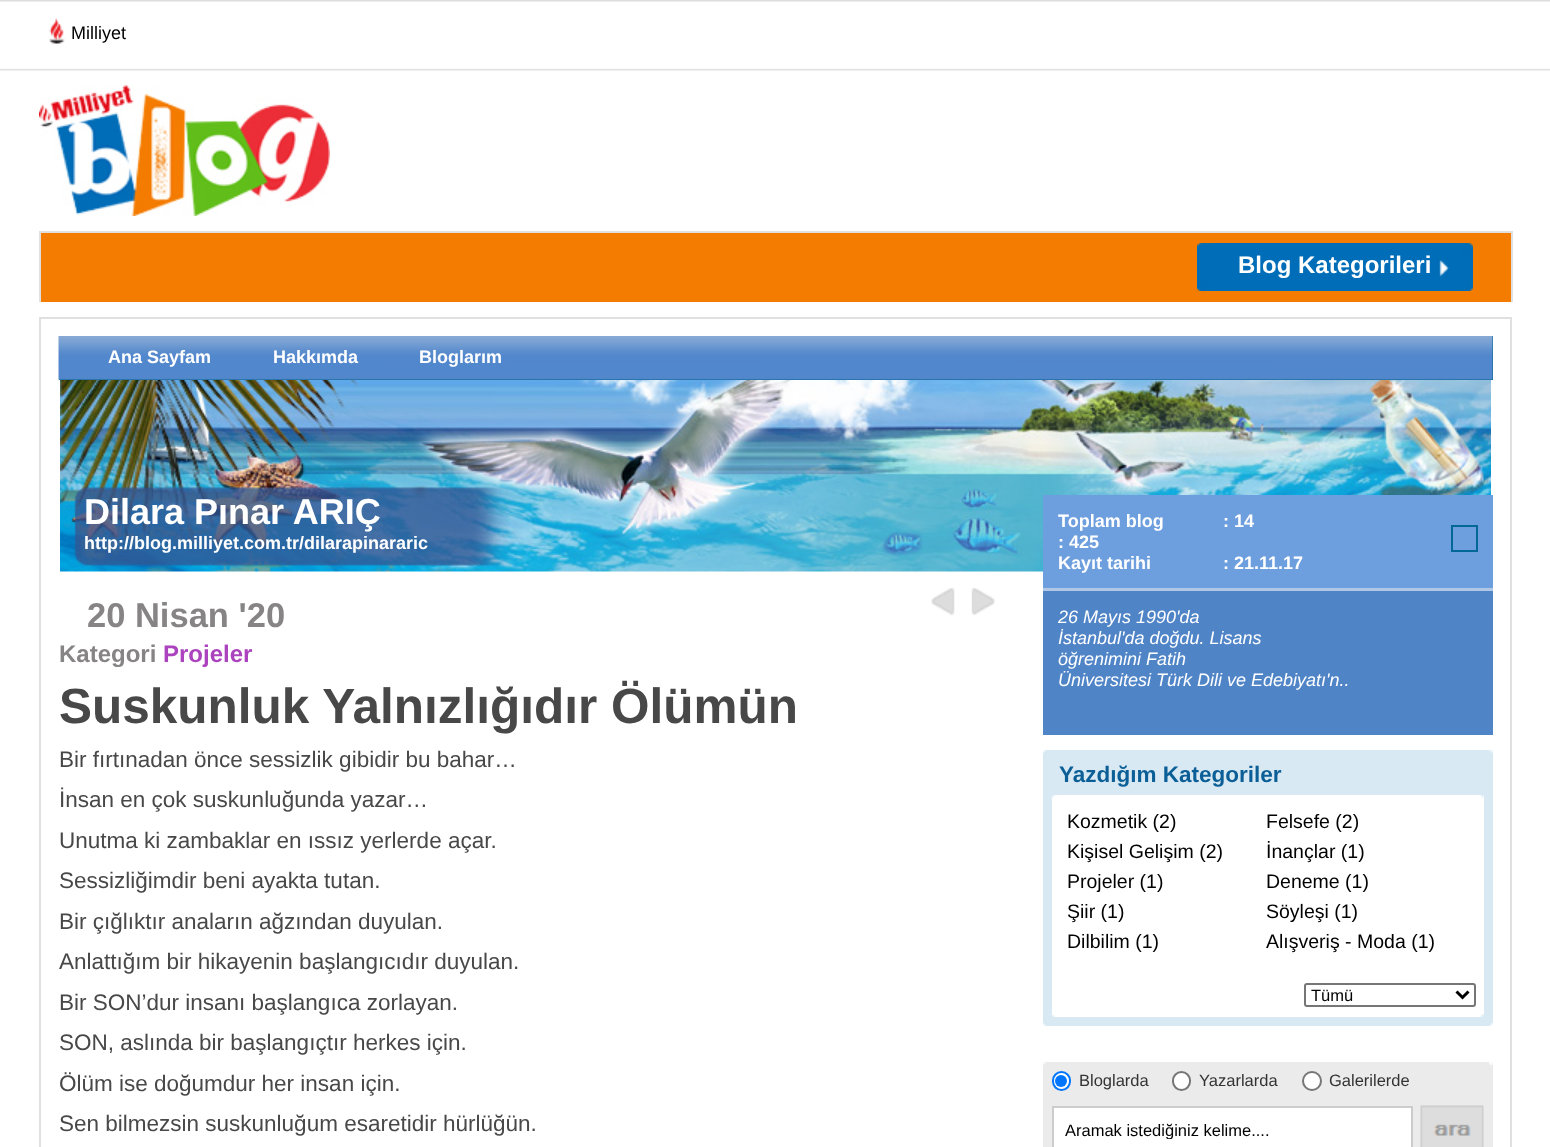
<?xml version="1.0" encoding="UTF-8"?>
<svg xmlns="http://www.w3.org/2000/svg" width="1550" height="1147">
    <defs>
        <clipPath id="clip1"><rect x="1065" y="1121" width="335" height="18"/></clipPath>
    </defs>
    <rect width="100%" height="100%" fill="#FFFFFF"/>
    <image x="0" y="0" width="1550" height="71" href="img_01.png"/>
    <image x="49" y="18" width="16" height="26" href="img_02.png"/>
    <text x="71" y="39" font-family="Liberation Sans" font-size="18" fill="#000000">Milliyet</text>
    <image x="39" y="85" width="291" height="131" href="img_03.png"/>
    <rect x="41" y="233" width="1470" height="69" fill="#F47C00"/>
    <rect x="39" y="231" width="1473" height="2" fill="#E0E0E0"/>
    <rect x="1511" y="231" width="2" height="71" fill="#E0E0E0"/>
    <rect x="39" y="231" width="2" height="71" fill="#E0E0E0"/>
    <image x="1197" y="243" width="276" height="48" href="img_04.png"/>
    <text x="1238" y="273" font-family="Liberation Sans" font-size="24" font-weight="700" fill="#FFFFFF">Blog Kategorileri</text>
    <image x="60" y="380" width="1431" height="192" href="img_05.png"/>
    <rect x="40" y="318" width="1471" height="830" fill="none" stroke="#E0E0E0" stroke-width="2"/>
    <rect x="59" y="336" width="1434" height="44" fill="#006592"/>
    <image x="58" y="336" width="1435" height="44" href="img_06.png"/>
    <text x="108" y="363" font-family="Liberation Sans" font-size="18" font-weight="700" fill="#FFFFFF">Ana Sayfam</text>
    <text x="273" y="363" font-family="Liberation Sans" font-size="18" font-weight="700" fill="#FFFFFF">Hakkımda</text>
    <text x="419" y="363" font-family="Liberation Sans" font-size="18" font-weight="700" fill="#FFFFFF">Bloglarım</text>
    <text x="84" y="524" font-family="Liberation Sans" font-size="36" font-weight="700" fill="#FFFFFF">Dilara Pınar ARIÇ</text>
    <text x="84" y="549" font-family="Liberation Sans" font-size="18" font-weight="700" fill="#FFFFFF">http://blog.milliyet.com.tr/dilarapinararic</text>
    <text x="87" y="627" font-family="Liberation Sans" font-size="34.5" font-weight="700" fill="#868484">20 Nisan '20</text>
    <image x="931" y="588" width="24" height="28" href="img_07.png"/>
    <image x="971" y="588" width="24" height="27" href="img_08.png"/>
    <text x="59" y="662" font-family="Liberation Sans" font-size="24" font-weight="700" fill="#868484">Kategori</text>
    <text x="163" y="662" font-family="Liberation Sans" font-size="24" font-weight="700" fill="#AC43BE">Projeler</text>
    <text x="59" y="723" font-family="Liberation Sans" font-size="49.5" font-weight="700" fill="#484848">Suskunluk Yalnızlığıdır Ölümün</text>
    <text font-family="Liberation Sans" font-size="22.5" fill="#484848">
        <tspan x="59" y="767">Bir fırtınadan önce sessizlik gibidir bu bahar…</tspan>
        <tspan x="59" y="807">İnsan en çok suskunluğunda yazar…</tspan>
        <tspan x="59" y="848">Unutma ki zambaklar en ıssız yerlerde açar.</tspan>
        <tspan x="59" y="888">Sessizliğimdir beni ayakta tutan.</tspan>
        <tspan x="59" y="929">Bir çığlıktır anaların ağzından duyulan.</tspan>
        <tspan x="59" y="969">Anlattığım bir hikayenin başlangıcıdır duyulan.</tspan>
        <tspan x="59" y="1010">Bir SON’dur insanı başlangıca zorlayan.</tspan>
        <tspan x="59" y="1050">SON, aslında bir başlangıçtır herkes için.</tspan>
        <tspan x="59" y="1091">Ölüm ise doğumdur her insan için.</tspan>
        <tspan x="59" y="1131">Sen bilmezsin suskunluğum esaretidir hürlüğün.</tspan>
    </text>
    <rect x="1043" y="591" width="450" height="144" fill="#4F84C7"/>
    <rect x="1043" y="495" width="450" height="93" fill="#6D9EDD"/>
    <rect x="1043" y="588" width="450" height="3" fill="#B0C8E6"/>
    <text x="1058" y="527" font-family="Liberation Sans" font-size="18" font-weight="700" fill="#FFFFFF">Toplam blog</text>
    <text x="1223" y="527" font-family="Liberation Sans" font-size="18" font-weight="700" fill="#FFFFFF">: 14</text>
    <text font-family="Liberation Sans" font-size="18" font-weight="700" fill="#FFFFFF">
        <tspan x="1058" y="548">: 425</tspan>
        <tspan x="1058" y="569">Kayıt tarihi</tspan>
    </text>
    <text x="1223" y="569" font-family="Liberation Sans" font-size="18" font-weight="700" fill="#FFFFFF">: 21.11.17</text>
    <rect x="1452" y="526" width="25" height="25" fill="none" stroke="#006796" stroke-width="2"/>
    <text font-family="Liberation Sans" font-size="18" font-style="italic" fill="#FFFFFF">
        <tspan x="1058" y="623">26 Mayıs 1990'da</tspan>
        <tspan x="1058" y="644">İstanbul'da doğdu. Lisans</tspan>
        <tspan x="1058" y="665">öğrenimini Fatih</tspan>
        <tspan x="1058" y="686">Üniversitesi Türk Dili ve Edebiyatı'n..</tspan>
    </text>
    <rect x="1043" y="750" width="450" height="273" fill="#D9E9F4"/>
    <image x="1042" y="750" width="451" height="3" href="img_09.png"/>
    <text x="1059" y="782" font-family="Liberation Sans" font-size="22.5" font-weight="700" fill="#0B5F96">Yazdığım Kategoriler</text>
    <rect x="1052" y="795" width="432" height="219" fill="#FFFFFF"/>
    <image x="1051" y="795" width="433" height="3" href="img_10.png"/>
    <text x="1067" y="828" font-family="Liberation Sans" font-size="19.5" fill="#000000">Kozmetik (2)</text>
    <text x="1266" y="828" font-family="Liberation Sans" font-size="19.5" fill="#000000">Felsefe (2)</text>
    <text x="1067" y="858" font-family="Liberation Sans" font-size="19.5" fill="#000000">Kişisel Gelişim (2)</text>
    <text x="1266" y="858" font-family="Liberation Sans" font-size="19.5" fill="#000000">İnançlar (1)</text>
    <text x="1067" y="888" font-family="Liberation Sans" font-size="19.5" fill="#000000">Projeler (1)</text>
    <text x="1266" y="888" font-family="Liberation Sans" font-size="19.5" fill="#000000">Deneme (1)</text>
    <text x="1067" y="918" font-family="Liberation Sans" font-size="19.5" fill="#000000">Şiir (1)</text>
    <text x="1266" y="918" font-family="Liberation Sans" font-size="19.5" fill="#000000">Söyleşi (1)</text>
    <text x="1067" y="948" font-family="Liberation Sans" font-size="19.5" fill="#000000">Dilbilim (1)</text>
    <text x="1266" y="948" font-family="Liberation Sans" font-size="19.5" fill="#000000">Alışveriş - Moda (1)</text>
    <rect x="1305" y="984" width="170" height="22" rx="2" fill="none" stroke="#767676" stroke-width="2"/>
    <path d="M 1456.5 991.5 L 1462.5 997.5 L 1468.5 991.5" fill="none" stroke="#000000" stroke-width="3"/>
    <text x="1311" y="1001" font-family="Liberation Sans" font-size="16.5" fill="#000000">Tümü</text>
    <image x="1051" y="1014" width="433" height="3" href="img_11.png"/>
    <image x="1042" y="1023" width="451" height="3" href="img_12.png"/>
    <rect x="1043" y="1062" width="450" height="85" fill="#EBEBEB"/>
    <image x="1042" y="1062" width="451" height="3" href="img_13.png"/>
    <rect x="1053" y="1072" width="17" height="18" rx="8.5" fill="#FFFFFF" stroke="#0075FF" stroke-width="2"/>
    <circle cx="1061" cy="1081" r="6" fill="#0075FF"/>
    <text x="1079" y="1086" font-family="Liberation Sans" font-size="16.5" fill="#333333">Bloglarda</text>
    <rect x="1173" y="1072" width="17" height="18" rx="8.5" fill="#FFFFFF" stroke="#767676" stroke-width="2"/>
    <text x="1199" y="1086" font-family="Liberation Sans" font-size="16.5" fill="#333333">Yazarlarda</text>
    <circle cx="1312" cy="1081" r="9" fill="#FFFFFF" stroke="#767676" stroke-width="2"/>
    <text x="1329" y="1086" font-family="Liberation Sans" font-size="16.5" fill="#333333">Galerilerde</text>
    <rect x="1053" y="1107" width="359" height="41" fill="#FFFFFF" stroke="#CCCCCC" stroke-width="2"/>
    <g clip-path="url(#clip1)">
        <text x="1065" y="1136" font-family="Liberation Sans" font-size="16.5" fill="#000000">Aramak istediğiniz kelime....</text>
    </g>
    <image x="1420" y="1105" width="64" height="42" href="img_14.png"/>
</svg>
